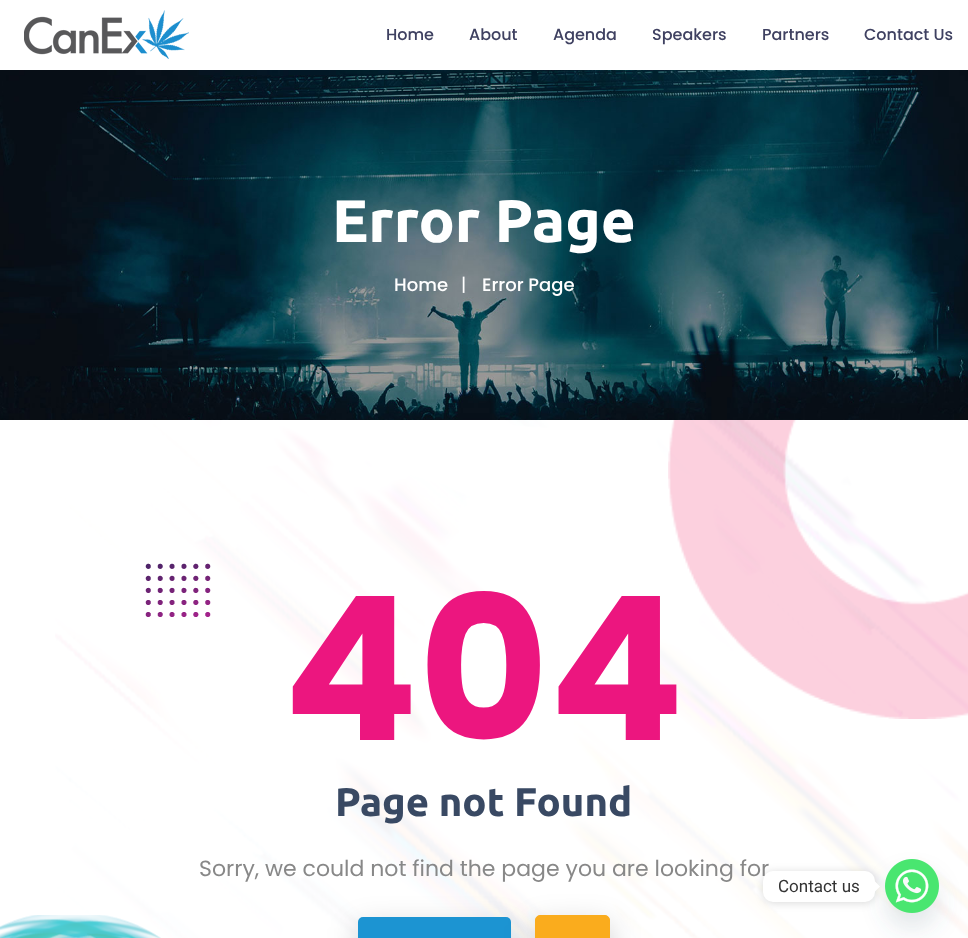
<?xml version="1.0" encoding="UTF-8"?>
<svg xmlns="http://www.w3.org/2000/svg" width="968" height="938">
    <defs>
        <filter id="blur1" x="-50%" y="-200%" width="200%" height="500%"><feGaussianBlur stdDeviation="15"/></filter>
        <filter id="blur2" x="-50%" y="-200%" width="200%" height="500%"><feGaussianBlur stdDeviation="12"/></filter>
        <filter id="blur3" x="-50%" y="-200%" width="200%" height="500%"><feGaussianBlur stdDeviation="4"/></filter>
    </defs>
    <rect width="100%" height="100%" fill="#FFFFFF"/>
    <image x="24" y="10" width="165" height="49" href="img_01.png"/>
    <text x="386" y="40" font-family="Poppins" font-size="16" font-weight="500" fill="#3F4161">Home</text>
    <text x="469" y="40" font-family="Poppins" font-size="16" font-weight="500" fill="#3F4161">About</text>
    <text x="553" y="40" font-family="Poppins" font-size="16" font-weight="500" fill="#3F4161">Agenda</text>
    <text x="652" y="40" font-family="Poppins" font-size="16" font-weight="500" fill="#3F4161">Speakers</text>
    <text x="762" y="40" font-family="Poppins" font-size="16" font-weight="500" fill="#3F4161">Partners</text>
    <text x="864" y="40" font-family="Poppins" font-size="16" font-weight="500" fill="#3F4161">Contact Us</text>
    <image x="0" y="70" width="968" height="350" href="img_02.png"/>
    <text x="332" y="242" font-family="Ubuntu" font-size="60" font-weight="700" fill="#FFFFFF">Error Page</text>
    <text x="394" y="291" font-family="Poppins" font-size="18" font-weight="500" fill="#FFFFFF">Home</text>
    <text x="461" y="291" font-family="Poppins" font-size="18" fill="#FFFFFF">|</text>
    <text x="482" y="291" font-family="Poppins" font-size="18" font-weight="500" fill="#FFFFFF">Error Page</text>
    <image x="55" y="420" width="913" height="518" href="img_06.png"/>
    <image x="145" y="563" width="66" height="54" href="img_03.png"/>
    <image x="668" y="420" width="300" height="299" href="img_04.png"/>
    <image x="0" y="915" width="161" height="23" href="img_05.png"/>
    <text x="283" y="740" font-family="Poppins" font-size="200" font-weight="700" fill="#EC167F">404</text>
    <text x="335" y="816" font-family="Ubuntu" font-size="40" font-weight="700" fill="#394963">Page not Found</text>
    <text x="199" y="876" font-family="Poppins" font-size="22" fill="#888888">Sorry, we could not find the page you are looking for</text>
    <rect x="358" y="927" width="153" height="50" rx="5" fill="#000000" fill-opacity="0.2" filter="url(#blur1)"/>
    <rect x="358" y="917" width="153" height="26" rx="5" fill="#1C94D2"/>
    <rect x="535" y="925" width="75" height="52" rx="5" fill="#000000" fill-opacity="0.2" filter="url(#blur1)"/>
    <rect x="535.5" y="915.5" width="74" height="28" rx="4.5" fill="#FAAC1D" stroke="#FAAC1D"/>
    <rect x="885" y="875" width="54" height="54" rx="27" fill="#49687E" fill-opacity="0.16" filter="url(#blur2)"/>
    <image x="885" y="859" width="54" height="54" href="img_07.png"/>
    <rect x="763" y="872" width="112" height="31" rx="10" fill="#000000" fill-opacity="0.15" filter="url(#blur3)"/>
    <rect x="763" y="871" width="112" height="31" rx="10" fill="#FFFFFF"/>
    <text x="778" y="892" font-family="Roboto" font-size="17" fill="#333333">Contact us</text>
    <path d="M 875 891.5 V 881.5 L 880 886.5 Z" fill="#FFFFFF"/>
</svg>
